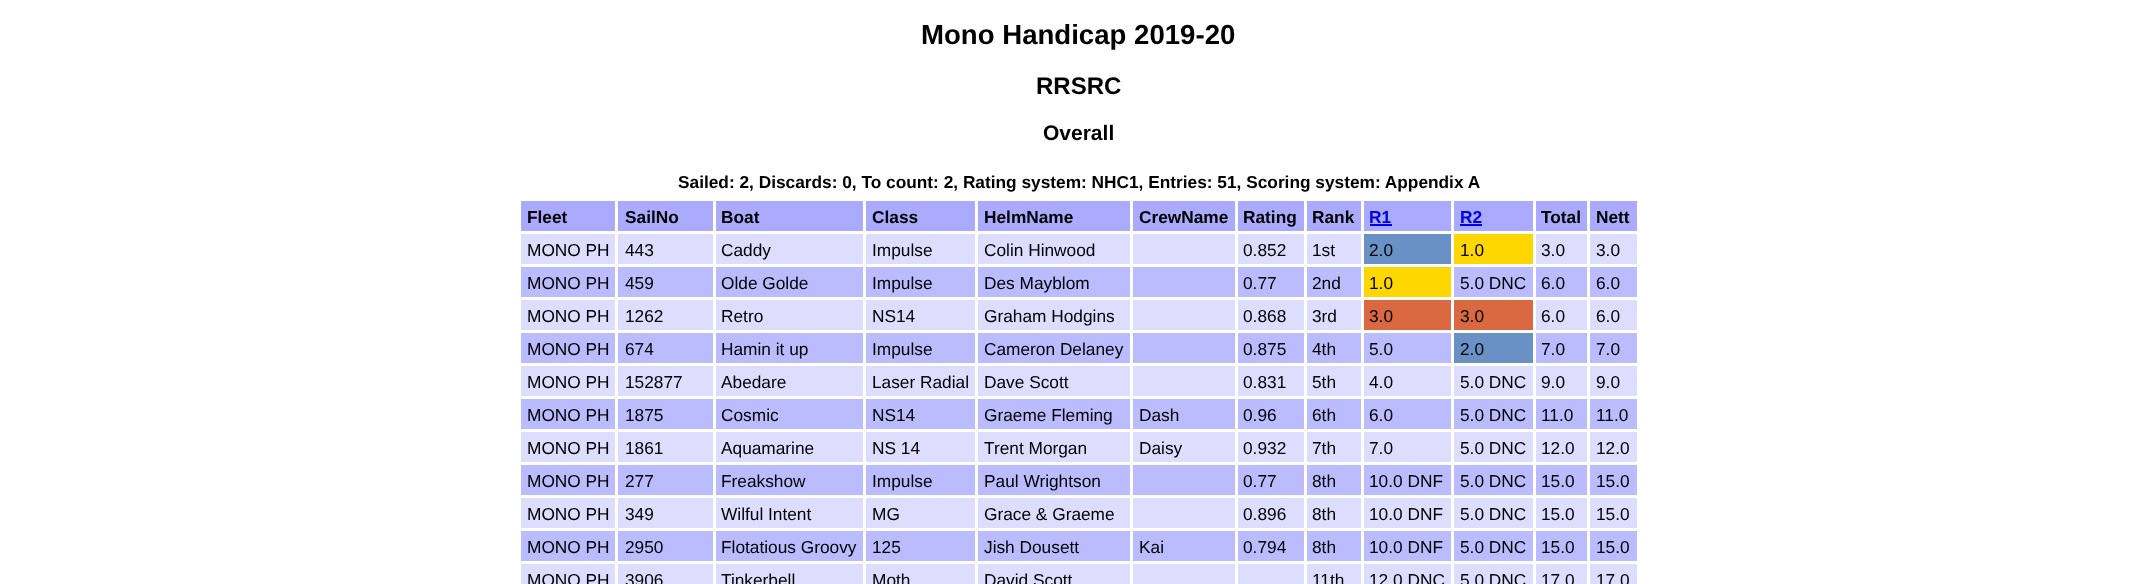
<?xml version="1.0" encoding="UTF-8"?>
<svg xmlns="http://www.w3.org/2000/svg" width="2156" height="584">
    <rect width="100%" height="100%" fill="#FFFFFF"/>
    <text x="921" y="44" font-family="Liberation Sans" font-size="27.6" font-weight="700" fill="#000000">Mono Handicap 2019-20</text>
    <text x="1036" y="94" font-family="Liberation Sans" font-size="24" font-weight="700" fill="#000000">RRSRC</text>
    <text x="1043" y="140" font-family="Liberation Sans" font-size="21" font-weight="700" fill="#000000">Overall</text>
    <text x="678" y="188" font-family="Liberation Sans" font-size="17.3" font-weight="700" fill="#000000">Sailed: 2, Discards: 0, To count: 2, Rating system: NHC1, Entries: 51, Scoring system: Appendix A</text>
    <rect x="521" y="201" width="94" height="30" fill="#AAAAFF"/>
    <text x="527" y="223" font-family="Liberation Sans" font-size="17.3" font-weight="700" fill="#000000">Fleet</text>
    <rect x="618" y="201" width="95" height="30" fill="#AAAAFF"/>
    <text x="625" y="223" font-family="Liberation Sans" font-size="17.3" font-weight="700" fill="#000000">SailNo</text>
    <rect x="716" y="201" width="147" height="30" fill="#AAAAFF"/>
    <text x="721" y="223" font-family="Liberation Sans" font-size="17.3" font-weight="700" fill="#000000">Boat</text>
    <rect x="866" y="201" width="109" height="30" fill="#AAAAFF"/>
    <text x="872" y="223" font-family="Liberation Sans" font-size="17.3" font-weight="700" fill="#000000">Class</text>
    <rect x="978" y="201" width="152" height="30" fill="#AAAAFF"/>
    <text x="984" y="223" font-family="Liberation Sans" font-size="17.3" font-weight="700" fill="#000000">HelmName</text>
    <rect x="1133" y="201" width="102" height="30" fill="#AAAAFF"/>
    <text x="1139" y="223" font-family="Liberation Sans" font-size="17.3" font-weight="700" fill="#000000">CrewName</text>
    <rect x="1238" y="201" width="66" height="30" fill="#AAAAFF"/>
    <text x="1243" y="223" font-family="Liberation Sans" font-size="17.3" font-weight="700" fill="#000000">Rating</text>
    <rect x="1307" y="201" width="54" height="30" fill="#AAAAFF"/>
    <text x="1312" y="223" font-family="Liberation Sans" font-size="17.3" font-weight="700" fill="#000000">Rank</text>
    <rect x="1364" y="201" width="87" height="30" fill="#AAAAFF"/>
    <text x="1369" y="223" font-family="Liberation Sans" font-size="17.3" font-weight="700" fill="#0000EE">R1</text>
    <rect x="1370" y="224" width="22" height="2" fill="#0000EE"/>
    <rect x="1454" y="201" width="79" height="30" fill="#AAAAFF"/>
    <text x="1460" y="223" font-family="Liberation Sans" font-size="17.3" font-weight="700" fill="#0000EE">R2</text>
    <rect x="1460" y="224" width="22" height="2" fill="#0000EE"/>
    <rect x="1536" y="201" width="51" height="30" fill="#AAAAFF"/>
    <text x="1541" y="223" font-family="Liberation Sans" font-size="17.3" font-weight="700" fill="#000000">Total</text>
    <rect x="1590" y="201" width="47" height="30" fill="#AAAAFF"/>
    <text x="1596" y="223" font-family="Liberation Sans" font-size="17.3" font-weight="700" fill="#000000">Nett</text>
    <rect x="521" y="234" width="1116" height="30" fill="#DDDDFF"/>
    <text x="527" y="256" font-family="Liberation Sans" font-size="17.3" fill="#000000">MONO PH</text>
    <text x="625" y="256" font-family="Liberation Sans" font-size="17.3" fill="#000000">443</text>
    <text x="721" y="256" font-family="Liberation Sans" font-size="17.3" fill="#000000">Caddy</text>
    <text x="872" y="256" font-family="Liberation Sans" font-size="17.3" fill="#000000">Impulse</text>
    <text x="984" y="256" font-family="Liberation Sans" font-size="17.3" fill="#000000">Colin Hinwood</text>
    <text x="1243" y="256" font-family="Liberation Sans" font-size="17.3" fill="#000000">0.852</text>
    <text x="1312" y="256" font-family="Liberation Sans" font-size="17.3" fill="#000000">1st</text>
    <rect x="1364" y="234" width="87" height="30" fill="#6A91C5"/>
    <text x="1369" y="256" font-family="Liberation Sans" font-size="17.3" fill="#000000">2.0</text>
    <rect x="1454" y="234" width="79" height="30" fill="#FFD700"/>
    <text x="1460" y="256" font-family="Liberation Sans" font-size="17.3" fill="#000000">1.0</text>
    <text x="1541" y="256" font-family="Liberation Sans" font-size="17.3" fill="#000000">3.0</text>
    <text x="1596" y="256" font-family="Liberation Sans" font-size="17.3" fill="#000000">3.0</text>
    <rect x="521" y="267" width="1116" height="30" fill="#BBBBFF"/>
    <text x="527" y="289" font-family="Liberation Sans" font-size="17.3" fill="#000000">MONO PH</text>
    <text x="625" y="289" font-family="Liberation Sans" font-size="17.3" fill="#000000">459</text>
    <text x="721" y="289" font-family="Liberation Sans" font-size="17.3" fill="#000000">Olde Golde</text>
    <text x="872" y="289" font-family="Liberation Sans" font-size="17.3" fill="#000000">Impulse</text>
    <text x="984" y="289" font-family="Liberation Sans" font-size="17.3" fill="#000000">Des Mayblom</text>
    <text x="1243" y="289" font-family="Liberation Sans" font-size="17.3" fill="#000000">0.77</text>
    <text x="1312" y="289" font-family="Liberation Sans" font-size="17.3" fill="#000000">2nd</text>
    <rect x="1364" y="267" width="87" height="30" fill="#FFD700"/>
    <text x="1369" y="289" font-family="Liberation Sans" font-size="17.3" fill="#000000">1.0</text>
    <text x="1460" y="289" font-family="Liberation Sans" font-size="17.3" fill="#000000">5.0 DNC</text>
    <text x="1541" y="289" font-family="Liberation Sans" font-size="17.3" fill="#000000">6.0</text>
    <text x="1596" y="289" font-family="Liberation Sans" font-size="17.3" fill="#000000">6.0</text>
    <rect x="521" y="300" width="1116" height="30" fill="#DDDDFF"/>
    <text x="527" y="322" font-family="Liberation Sans" font-size="17.3" fill="#000000">MONO PH</text>
    <text x="625" y="322" font-family="Liberation Sans" font-size="17.3" fill="#000000">1262</text>
    <text x="721" y="322" font-family="Liberation Sans" font-size="17.3" fill="#000000">Retro</text>
    <text x="872" y="322" font-family="Liberation Sans" font-size="17.3" fill="#000000">NS14</text>
    <text x="984" y="322" font-family="Liberation Sans" font-size="17.3" fill="#000000">Graham Hodgins</text>
    <text x="1243" y="322" font-family="Liberation Sans" font-size="17.3" fill="#000000">0.868</text>
    <text x="1312" y="322" font-family="Liberation Sans" font-size="17.3" fill="#000000">3rd</text>
    <rect x="1364" y="300" width="87" height="30" fill="#DA6841"/>
    <text x="1369" y="322" font-family="Liberation Sans" font-size="17.3" fill="#000000">3.0</text>
    <rect x="1454" y="300" width="79" height="30" fill="#DA6841"/>
    <text x="1460" y="322" font-family="Liberation Sans" font-size="17.3" fill="#000000">3.0</text>
    <text x="1541" y="322" font-family="Liberation Sans" font-size="17.3" fill="#000000">6.0</text>
    <text x="1596" y="322" font-family="Liberation Sans" font-size="17.3" fill="#000000">6.0</text>
    <rect x="521" y="333" width="1116" height="30" fill="#BBBBFF"/>
    <text x="527" y="355" font-family="Liberation Sans" font-size="17.3" fill="#000000">MONO PH</text>
    <text x="625" y="355" font-family="Liberation Sans" font-size="17.3" fill="#000000">674</text>
    <text x="721" y="355" font-family="Liberation Sans" font-size="17.3" fill="#000000">Hamin it up</text>
    <text x="872" y="355" font-family="Liberation Sans" font-size="17.3" fill="#000000">Impulse</text>
    <text x="984" y="355" font-family="Liberation Sans" font-size="17.3" fill="#000000">Cameron Delaney</text>
    <text x="1243" y="355" font-family="Liberation Sans" font-size="17.3" fill="#000000">0.875</text>
    <text x="1312" y="355" font-family="Liberation Sans" font-size="17.3" fill="#000000">4th</text>
    <text x="1369" y="355" font-family="Liberation Sans" font-size="17.3" fill="#000000">5.0</text>
    <rect x="1454" y="333" width="79" height="30" fill="#6A91C5"/>
    <text x="1460" y="355" font-family="Liberation Sans" font-size="17.3" fill="#000000">2.0</text>
    <text x="1541" y="355" font-family="Liberation Sans" font-size="17.3" fill="#000000">7.0</text>
    <text x="1596" y="355" font-family="Liberation Sans" font-size="17.3" fill="#000000">7.0</text>
    <rect x="521" y="366" width="1116" height="30" fill="#DDDDFF"/>
    <text x="527" y="388" font-family="Liberation Sans" font-size="17.3" fill="#000000">MONO PH</text>
    <text x="625" y="388" font-family="Liberation Sans" font-size="17.3" fill="#000000">152877</text>
    <text x="721" y="388" font-family="Liberation Sans" font-size="17.3" fill="#000000">Abedare</text>
    <text x="872" y="388" font-family="Liberation Sans" font-size="17.3" fill="#000000">Laser Radial</text>
    <text x="984" y="388" font-family="Liberation Sans" font-size="17.3" fill="#000000">Dave Scott</text>
    <text x="1243" y="388" font-family="Liberation Sans" font-size="17.3" fill="#000000">0.831</text>
    <text x="1312" y="388" font-family="Liberation Sans" font-size="17.3" fill="#000000">5th</text>
    <text x="1369" y="388" font-family="Liberation Sans" font-size="17.3" fill="#000000">4.0</text>
    <text x="1460" y="388" font-family="Liberation Sans" font-size="17.3" fill="#000000">5.0 DNC</text>
    <text x="1541" y="388" font-family="Liberation Sans" font-size="17.3" fill="#000000">9.0</text>
    <text x="1596" y="388" font-family="Liberation Sans" font-size="17.3" fill="#000000">9.0</text>
    <rect x="521" y="399" width="1116" height="30" fill="#BBBBFF"/>
    <text x="527" y="421" font-family="Liberation Sans" font-size="17.3" fill="#000000">MONO PH</text>
    <text x="625" y="421" font-family="Liberation Sans" font-size="17.3" fill="#000000">1875</text>
    <text x="721" y="421" font-family="Liberation Sans" font-size="17.3" fill="#000000">Cosmic</text>
    <text x="872" y="421" font-family="Liberation Sans" font-size="17.3" fill="#000000">NS14</text>
    <text x="984" y="421" font-family="Liberation Sans" font-size="17.3" fill="#000000">Graeme Fleming</text>
    <text x="1139" y="421" font-family="Liberation Sans" font-size="17.3" fill="#000000">Dash</text>
    <text x="1243" y="421" font-family="Liberation Sans" font-size="17.3" fill="#000000">0.96</text>
    <text x="1312" y="421" font-family="Liberation Sans" font-size="17.3" fill="#000000">6th</text>
    <text x="1369" y="421" font-family="Liberation Sans" font-size="17.3" fill="#000000">6.0</text>
    <text x="1460" y="421" font-family="Liberation Sans" font-size="17.3" fill="#000000">5.0 DNC</text>
    <text x="1541" y="421" font-family="Liberation Sans" font-size="17.3" fill="#000000">11.0</text>
    <text x="1596" y="421" font-family="Liberation Sans" font-size="17.3" fill="#000000">11.0</text>
    <rect x="521" y="432" width="1116" height="30" fill="#DDDDFF"/>
    <text x="527" y="454" font-family="Liberation Sans" font-size="17.3" fill="#000000">MONO PH</text>
    <text x="625" y="454" font-family="Liberation Sans" font-size="17.3" fill="#000000">1861</text>
    <text x="721" y="454" font-family="Liberation Sans" font-size="17.3" fill="#000000">Aquamarine</text>
    <text x="872" y="454" font-family="Liberation Sans" font-size="17.3" fill="#000000">NS 14</text>
    <text x="984" y="454" font-family="Liberation Sans" font-size="17.3" fill="#000000">Trent Morgan</text>
    <text x="1139" y="454" font-family="Liberation Sans" font-size="17.3" fill="#000000">Daisy</text>
    <text x="1243" y="454" font-family="Liberation Sans" font-size="17.3" fill="#000000">0.932</text>
    <text x="1312" y="454" font-family="Liberation Sans" font-size="17.3" fill="#000000">7th</text>
    <text x="1369" y="454" font-family="Liberation Sans" font-size="17.3" fill="#000000">7.0</text>
    <text x="1460" y="454" font-family="Liberation Sans" font-size="17.3" fill="#000000">5.0 DNC</text>
    <text x="1541" y="454" font-family="Liberation Sans" font-size="17.3" fill="#000000">12.0</text>
    <text x="1596" y="454" font-family="Liberation Sans" font-size="17.3" fill="#000000">12.0</text>
    <rect x="521" y="465" width="1116" height="30" fill="#BBBBFF"/>
    <text x="527" y="487" font-family="Liberation Sans" font-size="17.3" fill="#000000">MONO PH</text>
    <text x="625" y="487" font-family="Liberation Sans" font-size="17.3" fill="#000000">277</text>
    <text x="721" y="487" font-family="Liberation Sans" font-size="17.3" fill="#000000">Freakshow</text>
    <text x="872" y="487" font-family="Liberation Sans" font-size="17.3" fill="#000000">Impulse</text>
    <text x="984" y="487" font-family="Liberation Sans" font-size="17.3" fill="#000000">Paul Wrightson</text>
    <text x="1243" y="487" font-family="Liberation Sans" font-size="17.3" fill="#000000">0.77</text>
    <text x="1312" y="487" font-family="Liberation Sans" font-size="17.3" fill="#000000">8th</text>
    <text x="1369" y="487" font-family="Liberation Sans" font-size="17.3" fill="#000000">10.0 DNF</text>
    <text x="1460" y="487" font-family="Liberation Sans" font-size="17.3" fill="#000000">5.0 DNC</text>
    <text x="1541" y="487" font-family="Liberation Sans" font-size="17.3" fill="#000000">15.0</text>
    <text x="1596" y="487" font-family="Liberation Sans" font-size="17.3" fill="#000000">15.0</text>
    <rect x="521" y="498" width="1116" height="30" fill="#DDDDFF"/>
    <text x="527" y="520" font-family="Liberation Sans" font-size="17.3" fill="#000000">MONO PH</text>
    <text x="625" y="520" font-family="Liberation Sans" font-size="17.3" fill="#000000">349</text>
    <text x="721" y="520" font-family="Liberation Sans" font-size="17.3" fill="#000000">Wilful Intent</text>
    <text x="872" y="520" font-family="Liberation Sans" font-size="17.3" fill="#000000">MG</text>
    <text x="984" y="520" font-family="Liberation Sans" font-size="17.3" fill="#000000">Grace &amp; Graeme</text>
    <text x="1243" y="520" font-family="Liberation Sans" font-size="17.3" fill="#000000">0.896</text>
    <text x="1312" y="520" font-family="Liberation Sans" font-size="17.3" fill="#000000">8th</text>
    <text x="1369" y="520" font-family="Liberation Sans" font-size="17.3" fill="#000000">10.0 DNF</text>
    <text x="1460" y="520" font-family="Liberation Sans" font-size="17.3" fill="#000000">5.0 DNC</text>
    <text x="1541" y="520" font-family="Liberation Sans" font-size="17.3" fill="#000000">15.0</text>
    <text x="1596" y="520" font-family="Liberation Sans" font-size="17.3" fill="#000000">15.0</text>
    <rect x="521" y="531" width="1116" height="30" fill="#BBBBFF"/>
    <text x="527" y="553" font-family="Liberation Sans" font-size="17.3" fill="#000000">MONO PH</text>
    <text x="625" y="553" font-family="Liberation Sans" font-size="17.3" fill="#000000">2950</text>
    <text x="721" y="553" font-family="Liberation Sans" font-size="17.3" fill="#000000">Flotatious Groovy</text>
    <text x="872" y="553" font-family="Liberation Sans" font-size="17.3" fill="#000000">125</text>
    <text x="984" y="553" font-family="Liberation Sans" font-size="17.3" fill="#000000">Jish Dousett</text>
    <text x="1139" y="553" font-family="Liberation Sans" font-size="17.3" fill="#000000">Kai</text>
    <text x="1243" y="553" font-family="Liberation Sans" font-size="17.3" fill="#000000">0.794</text>
    <text x="1312" y="553" font-family="Liberation Sans" font-size="17.3" fill="#000000">8th</text>
    <text x="1369" y="553" font-family="Liberation Sans" font-size="17.3" fill="#000000">10.0 DNF</text>
    <text x="1460" y="553" font-family="Liberation Sans" font-size="17.3" fill="#000000">5.0 DNC</text>
    <text x="1541" y="553" font-family="Liberation Sans" font-size="17.3" fill="#000000">15.0</text>
    <text x="1596" y="553" font-family="Liberation Sans" font-size="17.3" fill="#000000">15.0</text>
    <rect x="521" y="564" width="1116" height="20" fill="#DDDDFF"/>
    <text x="527" y="586" font-family="Liberation Sans" font-size="17.3" fill="#000000">MONO PH</text>
    <rect x="615" y="231" width="3" height="353" fill="#FFFFFF"/>
    <text x="625" y="586" font-family="Liberation Sans" font-size="17.3" fill="#000000">3906</text>
    <rect x="713" y="231" width="3" height="353" fill="#FFFFFF"/>
    <text x="721" y="586" font-family="Liberation Sans" font-size="17.3" fill="#000000">Tinkerbell</text>
    <rect x="863" y="231" width="3" height="353" fill="#FFFFFF"/>
    <text x="872" y="586" font-family="Liberation Sans" font-size="17.3" fill="#000000">Moth</text>
    <rect x="975" y="231" width="3" height="353" fill="#FFFFFF"/>
    <text x="984" y="586" font-family="Liberation Sans" font-size="17.3" fill="#000000">David Scott</text>
    <rect x="1130" y="231" width="3" height="353" fill="#FFFFFF"/>
    <rect x="1235" y="231" width="3" height="353" fill="#FFFFFF"/>
    <rect x="1304" y="231" width="3" height="353" fill="#FFFFFF"/>
    <text x="1312" y="586" font-family="Liberation Sans" font-size="17.3" fill="#000000">11th</text>
    <rect x="1361" y="231" width="3" height="353" fill="#FFFFFF"/>
    <text x="1369" y="586" font-family="Liberation Sans" font-size="17.3" fill="#000000">12.0 DNC</text>
    <rect x="1451" y="231" width="3" height="353" fill="#FFFFFF"/>
    <text x="1460" y="586" font-family="Liberation Sans" font-size="17.3" fill="#000000">5.0 DNC</text>
    <rect x="1533" y="231" width="3" height="353" fill="#FFFFFF"/>
    <text x="1541" y="586" font-family="Liberation Sans" font-size="17.3" fill="#000000">17.0</text>
    <rect x="1587" y="231" width="3" height="353" fill="#FFFFFF"/>
    <text x="1596" y="586" font-family="Liberation Sans" font-size="17.3" fill="#000000">17.0</text>
</svg>
